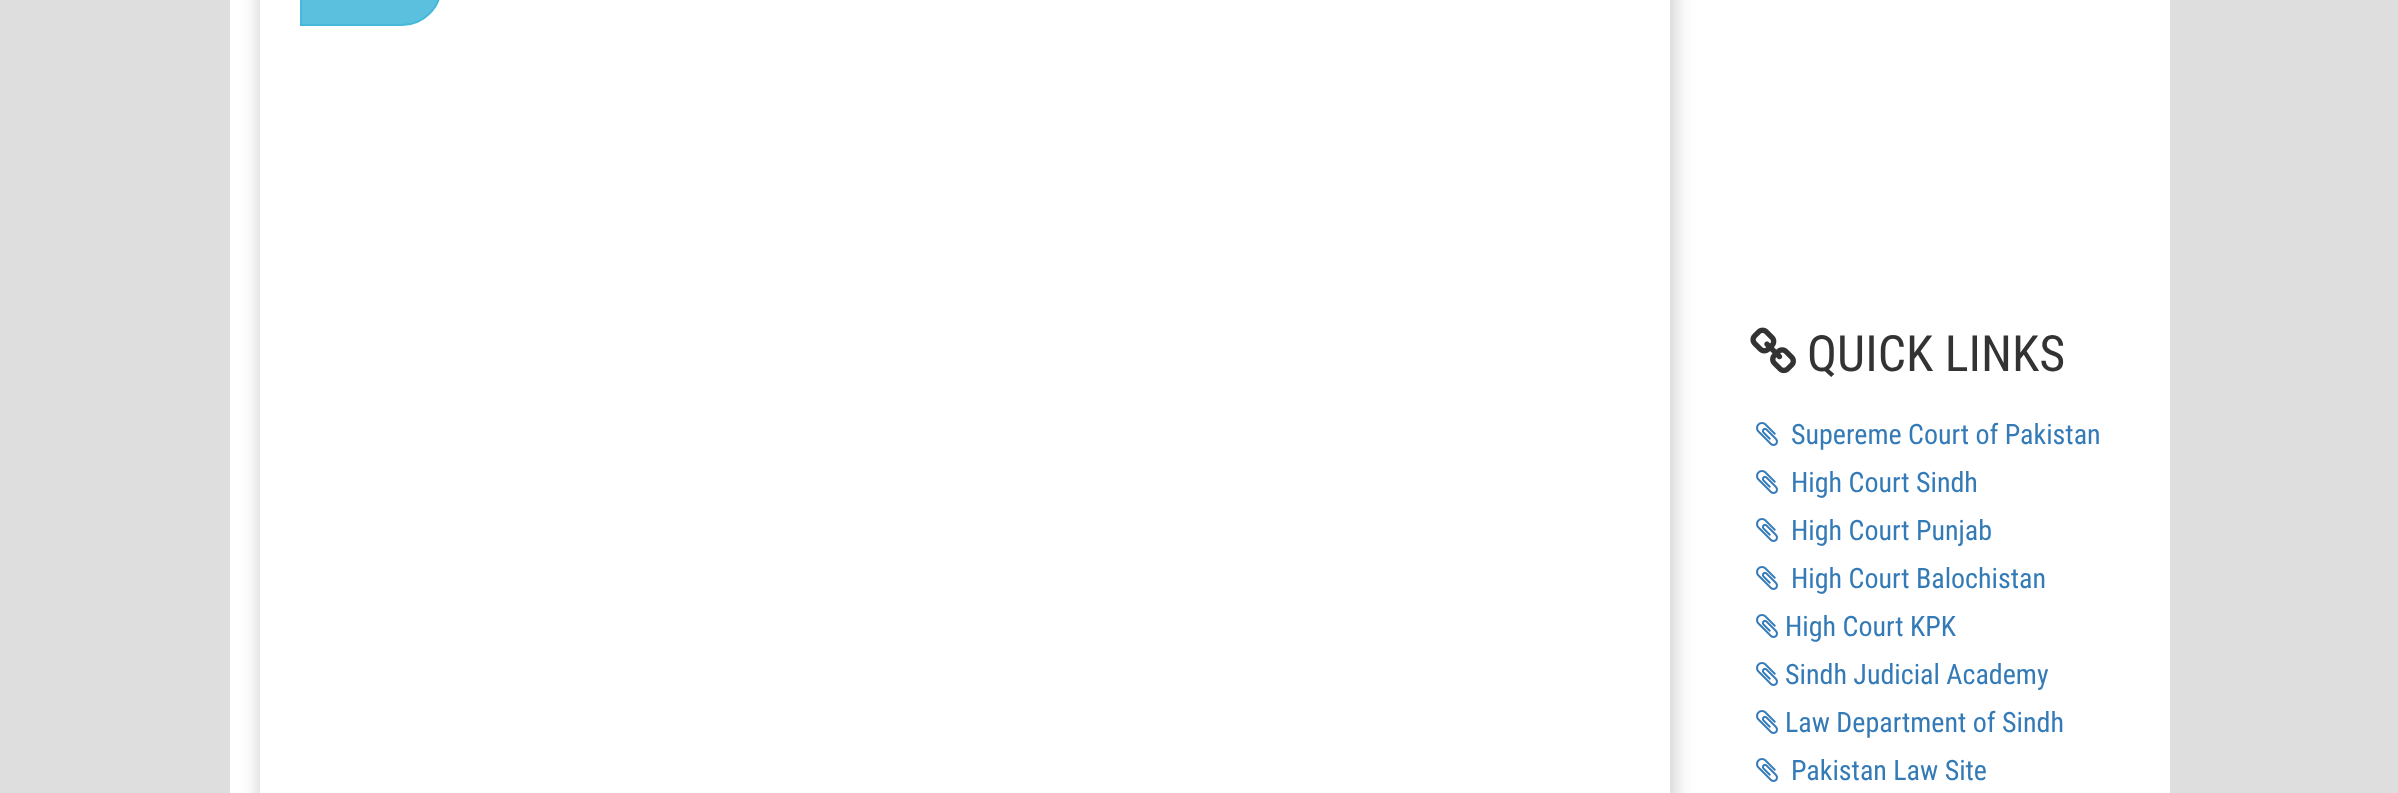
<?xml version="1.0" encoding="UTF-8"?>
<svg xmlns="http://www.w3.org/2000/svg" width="2398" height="793">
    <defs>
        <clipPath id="clip1"><path d="M 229 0 H 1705 V 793 H 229 Z M 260 -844 H 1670 V 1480 H 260 Z" clip-rule="evenodd"/></clipPath>
        <filter id="blur1" x="-50%" y="-200%" width="200%" height="500%"><feGaussianBlur stdDeviation="10"/></filter>
    </defs>
    <rect width="100%" height="100%" fill="#DEDEDE"/>
    <rect x="230" y="0" width="1940" height="793" fill="#FFFFFF"/>
    <g clip-path="url(#clip1)">
        <rect x="260" y="-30" width="1414" height="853" fill="#CECCCC" filter="url(#blur1)"/>
    </g>
    <path d="M 340 -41 H 441 V -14 C 441 7.5 423.5 25 402 25 H 301 V -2 C 301 -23.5 318.5 -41 340 -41 Z" fill="#5BC0DE" stroke="#46B8DA" stroke-width="2"/>
    <image x="1750" y="327" width="46" height="47" href="img_01.png"/>
    <text x="1807" y="371" font-family="Roboto Condensed" font-size="50" fill="#333333">QUICK LINKS</text>
    <image x="1756" y="422" width="22" height="24" href="img_02.png"/>
    <text x="1791" y="444" font-family="Roboto Condensed" font-size="28" fill="#337AB7">Supereme Court of Pakistan</text>
    <image x="1756" y="470" width="22" height="24" href="img_02.png"/>
    <text x="1791" y="492" font-family="Roboto Condensed" font-size="28" fill="#337AB7">High Court Sindh</text>
    <image x="1756" y="518" width="22" height="24" href="img_02.png"/>
    <text x="1791" y="540" font-family="Roboto Condensed" font-size="28" fill="#337AB7">High Court Punjab</text>
    <image x="1756" y="566" width="22" height="24" href="img_02.png"/>
    <text x="1791" y="588" font-family="Roboto Condensed" font-size="28" fill="#337AB7">High Court Balochistan</text>
    <image x="1756" y="614" width="22" height="24" href="img_02.png"/>
    <text x="1785" y="636" font-family="Roboto Condensed" font-size="28" fill="#337AB7">High Court KPK</text>
    <image x="1756" y="662" width="22" height="24" href="img_02.png"/>
    <text x="1785" y="684" font-family="Roboto Condensed" font-size="28" fill="#337AB7">Sindh Judicial Academy</text>
    <image x="1756" y="710" width="22" height="24" href="img_02.png"/>
    <text x="1785" y="732" font-family="Roboto Condensed" font-size="28" fill="#337AB7">Law Department of Sindh</text>
    <image x="1756" y="758" width="22" height="24" href="img_02.png"/>
    <text x="1791" y="780" font-family="Roboto Condensed" font-size="28" fill="#337AB7">Pakistan Law Site</text>
</svg>
